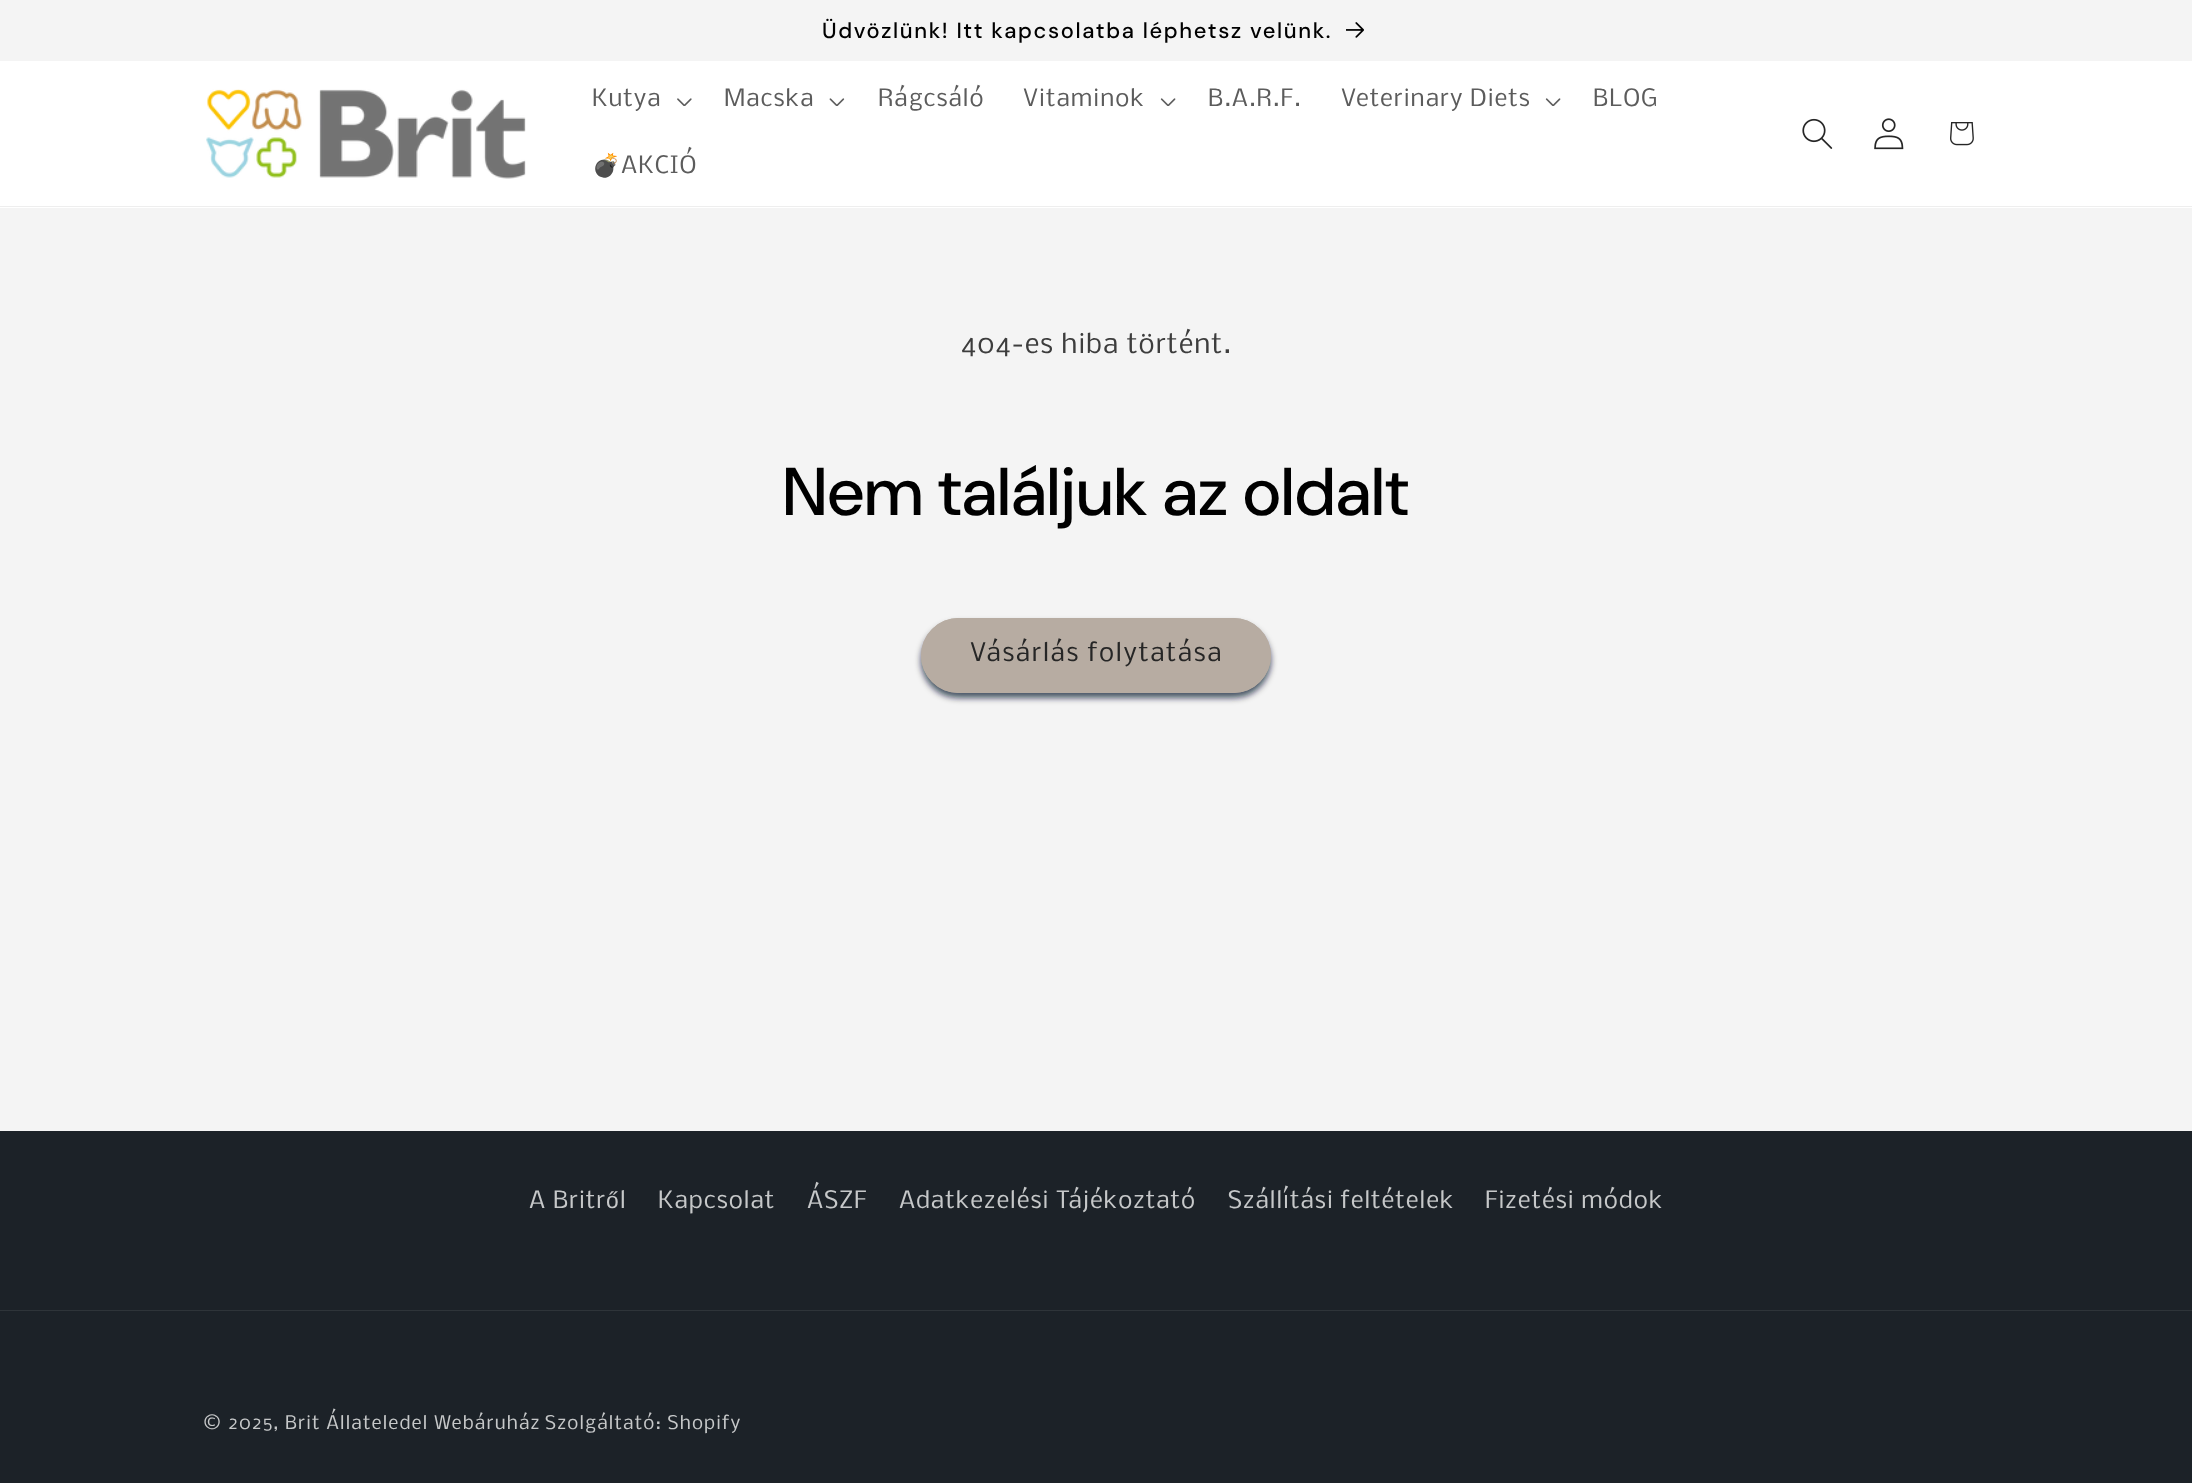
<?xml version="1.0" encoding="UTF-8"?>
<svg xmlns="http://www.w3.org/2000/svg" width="2192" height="1483">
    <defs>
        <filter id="blur1" x="-50%" y="-200%" width="200%" height="500%"><feGaussianBlur stdDeviation="3"/></filter>
    </defs>
    <rect width="100%" height="100%" fill="#F4F4F4"/>
    <text x="822" y="38" font-family="'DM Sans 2'" font-size="21.9" font-weight="500" letter-spacing="1.6" fill="#000000">Üdvözlünk! Itt kapcsolatba léphetsz velünk.</text>
    <image x="1346" y="22" width="18" height="16" href="img_01.png"/>
    <rect x="0" y="61" width="2192" height="147" fill="#FFFFFF"/>
    <rect x="0" y="206" width="2192" height="1" fill="#EEEEEE"/>
    <image x="206" y="89" width="320" height="90" href="img_02.png"/>
    <text x="592" y="106" font-family="Nobile" font-size="22.75" letter-spacing="1" fill="#5C5C5C">Kutya</text>
    <image x="677" y="98" width="15" height="8" href="img_03.png"/>
    <text x="724" y="106" font-family="Nobile" font-size="22.75" letter-spacing="1" fill="#5C5C5C">Macska</text>
    <image x="829" y="98" width="16" height="8" href="img_04.png"/>
    <text x="878" y="106" font-family="Nobile" font-size="22.75" letter-spacing="1" fill="#5C5C5C">Rágcsáló</text>
    <text x="1023" y="106" font-family="Nobile" font-size="22.75" letter-spacing="1" fill="#5C5C5C">Vitaminok</text>
    <image x="1160" y="98" width="16" height="8" href="img_05.png"/>
    <text x="1208" y="106" font-family="Nobile" font-size="22.75" letter-spacing="1" fill="#5C5C5C">B.A.R.F.</text>
    <text x="1341" y="106" font-family="Nobile" font-size="22.75" letter-spacing="1" fill="#5C5C5C">Veterinary Diets</text>
    <image x="1545" y="98" width="16" height="8" href="img_05.png"/>
    <text x="1593" y="106" font-family="Nobile" font-size="22.75" letter-spacing="1" fill="#5C5C5C">BLOG</text>
    <text x="592" y="173" font-family="Noto Color Emoji" font-size="22.75" letter-spacing="1" fill="#5C5C5C">💣</text>
    <text x="621" y="173" font-family="Nobile" font-size="22.75" letter-spacing="1" fill="#5C5C5C">AKCIÓ</text>
    <image x="1802" y="118" width="31" height="31" href="img_06.png"/>
    <image x="1874" y="118" width="30" height="32" href="img_07.png"/>
    <image x="1950" y="122" width="24" height="24" href="img_08.png"/>
    <text x="961" y="353" font-family="Nobile" font-size="26" letter-spacing="1" fill="#3D3D3D">404-es hiba történt.</text>
    <text x="783" y="515" font-family="DM Sans" font-size="67.5" font-weight="500" letter-spacing="1" fill="#000000">Nem találjuk az oldalt</text>
    <rect x="921" y="623" width="350" height="75" rx="37.5" fill="#001128" fill-opacity="0.7" filter="url(#blur1)"/>
    <rect x="921" y="618" width="350" height="75" rx="37.5" fill="#B7ACA2"/>
    <rect x="921.5" y="618.5" width="349" height="74" rx="37" fill="none" stroke="#B7ACA2"/>
    <text x="970" y="661" font-family="Nobile" font-size="24.4" letter-spacing="1.6" fill="#262626">Vásárlás folytatása</text>
    <rect x="0" y="1131" width="2192" height="352" fill="#1C2228"/>
    <text x="529" y="1208" font-family="Nobile" font-size="22.75" letter-spacing="1" fill="#C6C8C9">A Britr</text>
    <text x="606" y="1208" font-family="Liberation Sans" font-size="22.75" letter-spacing="1" fill="#C6C8C9">ő</text>
    <text x="620" y="1208" font-family="Nobile" font-size="22.75" letter-spacing="1" fill="#C6C8C9">l</text>
    <text x="658" y="1208" font-family="Nobile" font-size="22.75" letter-spacing="1" fill="#C6C8C9">Kapcsolat</text>
    <text x="807" y="1208" font-family="Nobile" font-size="22.75" letter-spacing="1" fill="#C6C8C9">ÁSZF</text>
    <text x="899" y="1208" font-family="Nobile" font-size="22.75" letter-spacing="1" fill="#C6C8C9">Adatkezelési Tájékoztató</text>
    <text x="1228" y="1208" font-family="Nobile" font-size="22.75" letter-spacing="1" fill="#C6C8C9">Szállítási feltételek</text>
    <text x="1485" y="1208" font-family="Nobile" font-size="22.75" letter-spacing="1" fill="#C6C8C9">Fizetési módok</text>
    <rect x="0" y="1310" width="2192" height="1" fill="#2E3439"/>
    <text x="203" y="1429" font-family="Nobile" font-size="17.9" letter-spacing="1.15" fill="#C6C8C9">© 2025, Brit Állateledel Webáruház</text>
    <text x="545" y="1429" font-family="Nobile" font-size="17.9" letter-spacing="1.15" fill="#C6C8C9">Szolgáltató: Shopify</text>
</svg>
